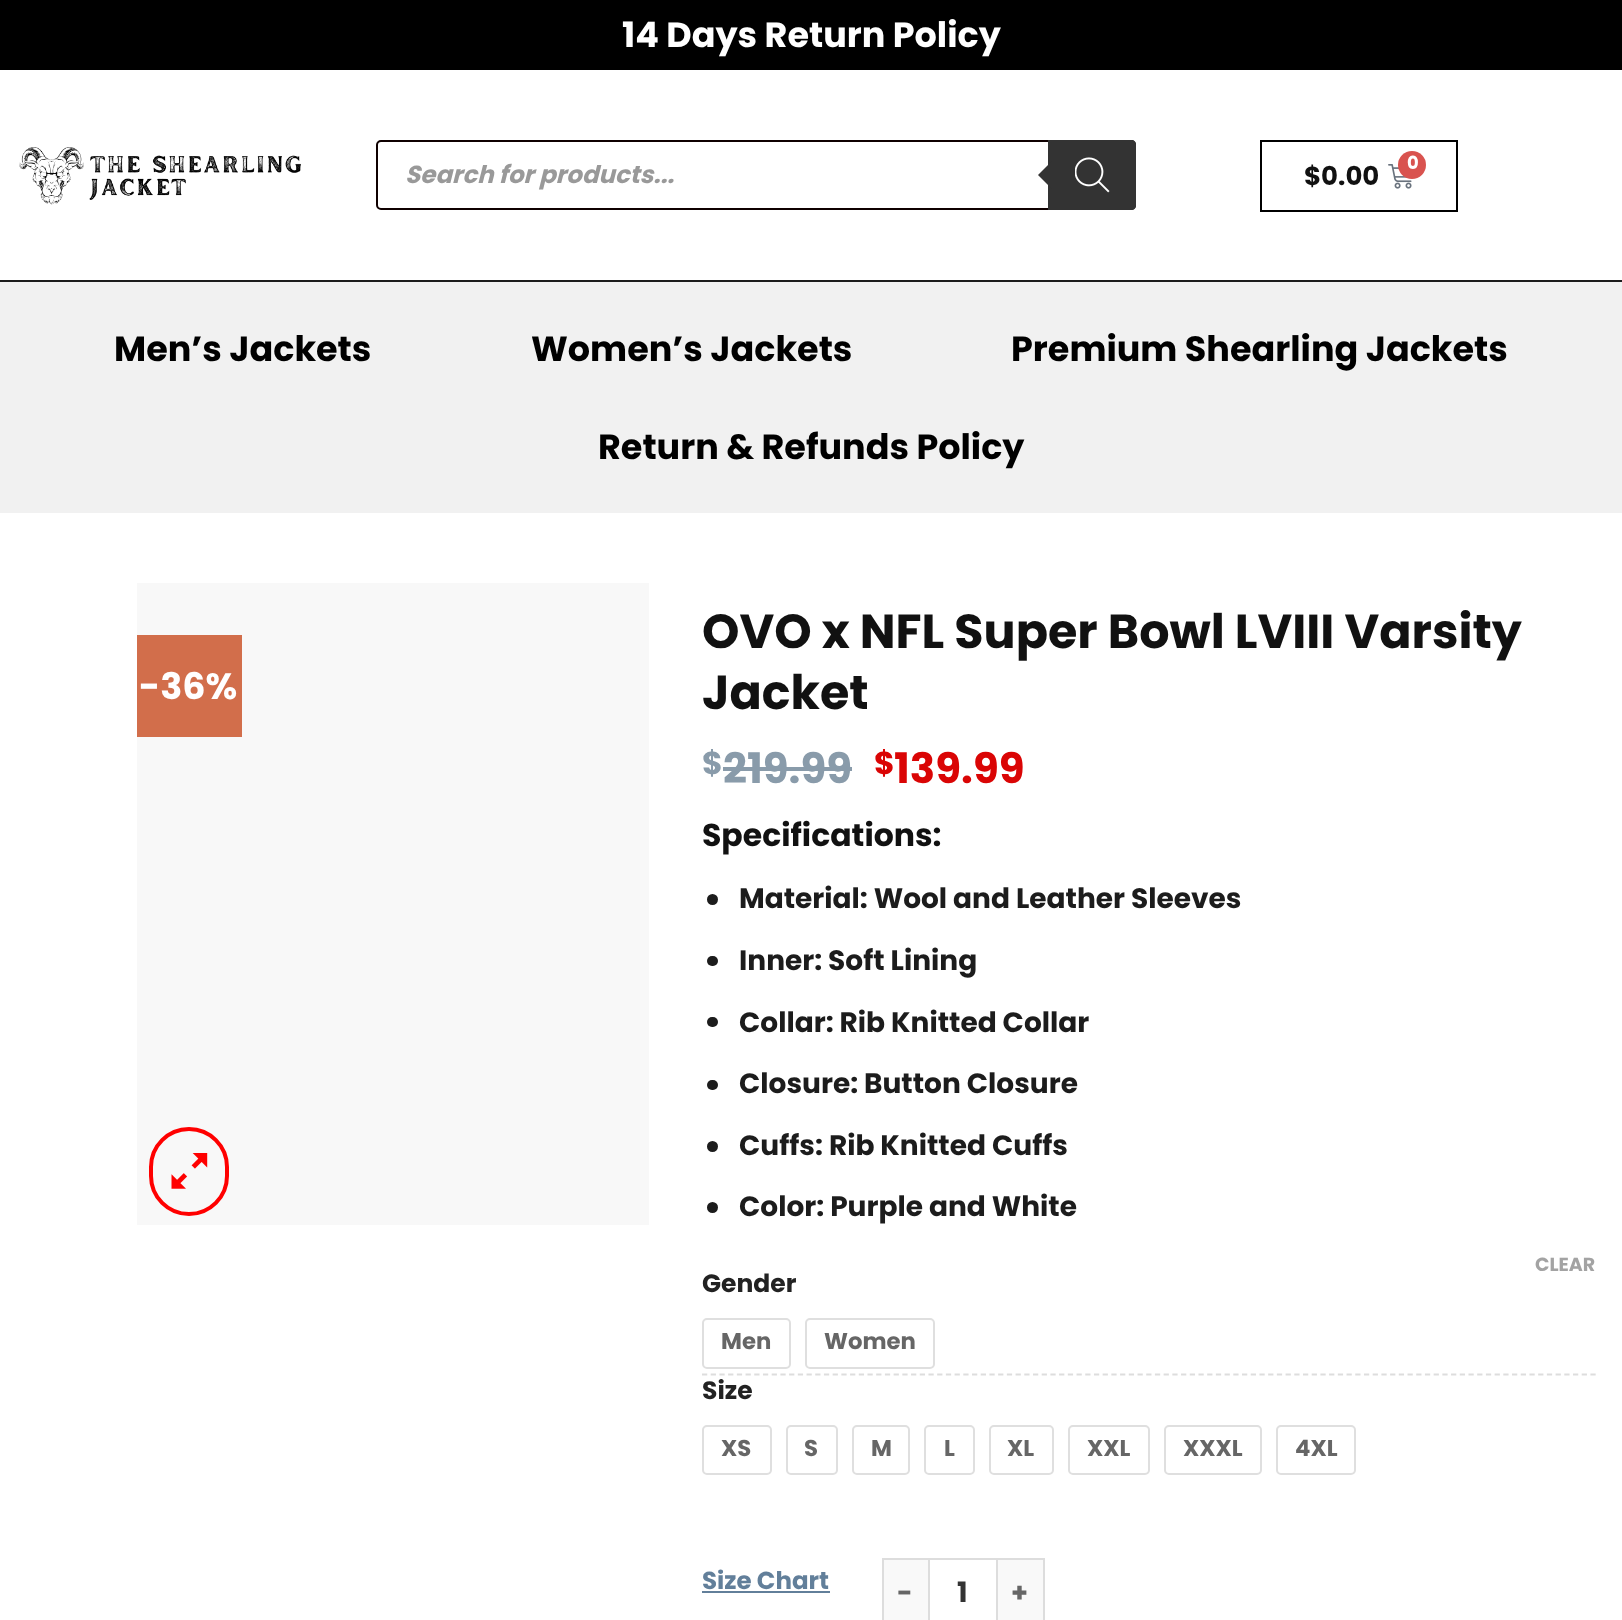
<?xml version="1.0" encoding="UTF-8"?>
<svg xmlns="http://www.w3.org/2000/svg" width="1622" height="1620">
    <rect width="100%" height="100%" fill="#FFFFFF"/>
    <rect x="0" y="0" width="1622" height="70" fill="#000000"/>
    <text x="622" y="47" font-family="Poppins" font-size="35" font-weight="700" fill="#FFFFFF">14 Days Return Policy</text>
    <image x="19" y="147" width="282" height="58" href="img_01.png"/>
    <rect x="377" y="141" width="758" height="68" rx="4" fill="none" stroke="#0F0000" stroke-width="2"/>
    <text x="405" y="183" font-family="Poppins" font-size="24.5" font-weight="700" font-style="italic" fill="#999999">Search for products...</text>
    <path d="M 1048 140 H 1132 C 1134 140 1136 142 1136 144 V 206 C 1136 208 1134 210 1132 210 H 1048 Z" fill="#333333"/>
    <path d="M 1052 161 V 189 L 1038 175 Z" fill="#333333"/>
    <image x="1075" y="157" width="35" height="36" href="img_02.png"/>
    <rect x="1261" y="141" width="196" height="70" fill="none" stroke="#000000" stroke-width="2"/>
    <image x="1388" y="164" width="24" height="25" href="img_03.png"/>
    <circle cx="1412" cy="165" r="14" fill="#D9534F"/>
    <text x="1407" y="169" font-family="Poppins" font-size="18" font-weight="700" fill="#FFFFFF">0</text>
    <text x="1304" y="185" font-family="Poppins" font-size="26" font-weight="700" fill="#111111">$0.00</text>
    <rect x="0" y="282" width="1622" height="231" fill="#F1F1F1"/>
    <rect x="0" y="280" width="1622" height="2" fill="#1C1C1C"/>
    <text x="114" y="361" font-family="Poppins" font-size="35" font-weight="700" fill="#000000">Men’s Jackets</text>
    <text x="531" y="361" font-family="Poppins" font-size="35" font-weight="700" fill="#000000">Women’s Jackets</text>
    <text x="1011" y="361" font-family="Poppins" font-size="35" font-weight="700" fill="#000000">Premium Shearling Jackets</text>
    <text x="598" y="459" font-family="Poppins" font-size="35" font-weight="700" fill="#000000">Return &amp; Refunds Policy</text>
    <rect x="137" y="583" width="512" height="642" fill="#F8F8F8"/>
    <rect x="137" y="635" width="105" height="102" fill="#D26E4B"/>
    <text x="139" y="699" font-family="Poppins" font-size="36.5" font-weight="700" fill="#FFFFFF">-36%</text>
    <rect x="151" y="1129" width="76" height="85" rx="38" fill="none" stroke="#FF0000" stroke-width="4"/>
    <image x="171" y="1153" width="37" height="36" href="img_04.png"/>
    <text font-family="Poppins" font-size="47.6" font-weight="700" fill="#111111">
        <tspan x="702" y="648">OVO x NFL Super Bowl LVIII Varsity</tspan>
        <tspan x="702" y="709">Jacket</tspan>
    </text>
    <text x="702" y="774" font-family="Poppins" font-size="31.5" font-weight="700" fill="#899BAA">$</text>
    <text x="723" y="783" font-family="Poppins" font-size="42" font-weight="700" fill="#899BAA">219.99</text>
    <rect x="723" y="767" width="129" height="4" fill="#899BAA"/>
    <text x="874" y="774" font-family="Poppins" font-size="31.5" font-weight="700" fill="#DA0505">$</text>
    <text x="894" y="783" font-family="Poppins" font-size="42" font-weight="700" fill="#DA0505">139.99</text>
    <text x="702" y="846" font-family="Poppins" font-size="31.5" font-weight="700" fill="#111111">Specifications:</text>
    <circle cx="712.5" cy="899.5" r="5.5" fill="#1C1C1C"/>
    <text x="739" y="908" font-family="Poppins" font-size="28" font-weight="700" fill="#1C1C1C">Material: Wool and Leather Sleeves</text>
    <rect x="707" y="956" width="11" height="10" rx="5" fill="#1C1C1C"/>
    <text x="739" y="970" font-family="Poppins" font-size="28" font-weight="700" fill="#1C1C1C">Inner: Soft Lining</text>
    <rect x="707" y="1017" width="11" height="10" rx="5" fill="#1C1C1C"/>
    <text x="739" y="1032" font-family="Poppins" font-size="28" font-weight="700" fill="#1C1C1C">Collar: Rib Knitted Collar</text>
    <rect x="707" y="1080" width="11" height="10" rx="5" fill="#1C1C1C"/>
    <text x="739" y="1093" font-family="Poppins" font-size="28" font-weight="700" fill="#1C1C1C">Closure: Button Closure</text>
    <circle cx="712.5" cy="1146.5" r="5.5" fill="#1C1C1C"/>
    <text x="739" y="1155" font-family="Poppins" font-size="28" font-weight="700" fill="#1C1C1C">Cuffs: Rib Knitted Cuffs</text>
    <circle cx="712.5" cy="1207.5" r="5.5" fill="#1C1C1C"/>
    <text x="739" y="1216" font-family="Poppins" font-size="28" font-weight="700" fill="#1C1C1C">Color: Purple and White</text>
    <path d="M 702 1374.5 H 1596" fill="none" stroke="#DDDDDD" stroke-width="1.8" stroke-dasharray="5.25 3.46"/>
    <text x="1535" y="1271" font-family="Poppins" font-size="19" font-weight="700" fill="#A3A3A3">CLEAR</text>
    <rect x="703" y="1426" width="68" height="48" rx="4" fill="none" stroke="#DFDFDF" stroke-width="2"/>
    <text x="721" y="1456" font-family="Poppins" font-size="22.75" font-weight="700" fill="#666666">XS</text>
    <rect x="787" y="1426" width="50" height="48" rx="4" fill="none" stroke="#DFDFDF" stroke-width="2"/>
    <text x="804" y="1456" font-family="Poppins" font-size="22.75" font-weight="700" fill="#666666">S</text>
    <rect x="853" y="1426" width="56" height="48" rx="4" fill="none" stroke="#DFDFDF" stroke-width="2"/>
    <text x="871" y="1456" font-family="Poppins" font-size="22.75" font-weight="700" fill="#666666">M</text>
    <rect x="925" y="1426" width="49" height="48" rx="4" fill="none" stroke="#DFDFDF" stroke-width="2"/>
    <text x="944" y="1456" font-family="Poppins" font-size="22.75" font-weight="700" fill="#666666">L</text>
    <rect x="990" y="1426" width="63" height="48" rx="4" fill="none" stroke="#DFDFDF" stroke-width="2"/>
    <text x="1007" y="1456" font-family="Poppins" font-size="22.75" font-weight="700" fill="#666666">XL</text>
    <rect x="1069" y="1426" width="80" height="48" rx="4" fill="none" stroke="#DFDFDF" stroke-width="2"/>
    <text x="1087" y="1456" font-family="Poppins" font-size="22.75" font-weight="700" fill="#666666">XXL</text>
    <rect x="1165" y="1426" width="96" height="48" rx="4" fill="none" stroke="#DFDFDF" stroke-width="2"/>
    <text x="1183" y="1456" font-family="Poppins" font-size="22.75" font-weight="700" fill="#666666">XXXL</text>
    <rect x="1277" y="1426" width="78" height="48" rx="4" fill="none" stroke="#DFDFDF" stroke-width="2"/>
    <text x="1295" y="1456" font-family="Poppins" font-size="22.75" font-weight="700" fill="#666666">4XL</text>
    <text x="702" y="1399" font-family="Poppins" font-size="25" font-weight="700" fill="#222222">Size</text>
    <text x="702" y="1292" font-family="Poppins" font-size="25" font-weight="700" fill="#222222">Gender</text>
    <rect x="703" y="1319" width="87" height="49" rx="4" fill="none" stroke="#DFDFDF" stroke-width="2"/>
    <text x="721" y="1349" font-family="Poppins" font-size="22.75" font-weight="700" fill="#666666">Men</text>
    <rect x="806" y="1319" width="128" height="49" rx="4" fill="none" stroke="#DFDFDF" stroke-width="2"/>
    <text x="824" y="1349" font-family="Poppins" font-size="22.75" font-weight="700" fill="#666666">Women</text>
    <text x="702" y="1589" font-family="Poppins" font-size="24.5" font-weight="700" fill="#627F9A">Size Chart</text>
    <rect x="702" y="1591" width="128" height="2" fill="#627F9A"/>
    <rect x="884" y="1560" width="44" height="60" fill="#F9F9F9"/>
    <rect x="882" y="1558" width="46" height="2" fill="#DDDDDD"/>
    <rect x="882" y="1558" width="2" height="62" fill="#DDDDDD"/>
    <text x="897" y="1602" font-family="Poppins" font-size="27" font-weight="700" letter-spacing="1" fill="#666666">-</text>
    <rect x="929" y="1559" width="68" height="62" fill="none" stroke="#DDDDDD" stroke-width="2"/>
    <text x="957" y="1602" font-family="Poppins" font-size="28" font-weight="700" fill="#333333">1</text>
    <rect x="998" y="1560" width="45" height="60" fill="#F9F9F9"/>
    <rect x="998" y="1558" width="47" height="2" fill="#DDDDDD"/>
    <rect x="1043" y="1558" width="2" height="62" fill="#DDDDDD"/>
    <text x="1011" y="1602" font-family="Poppins" font-size="27" font-weight="700" letter-spacing="1" fill="#666666">+</text>
</svg>
